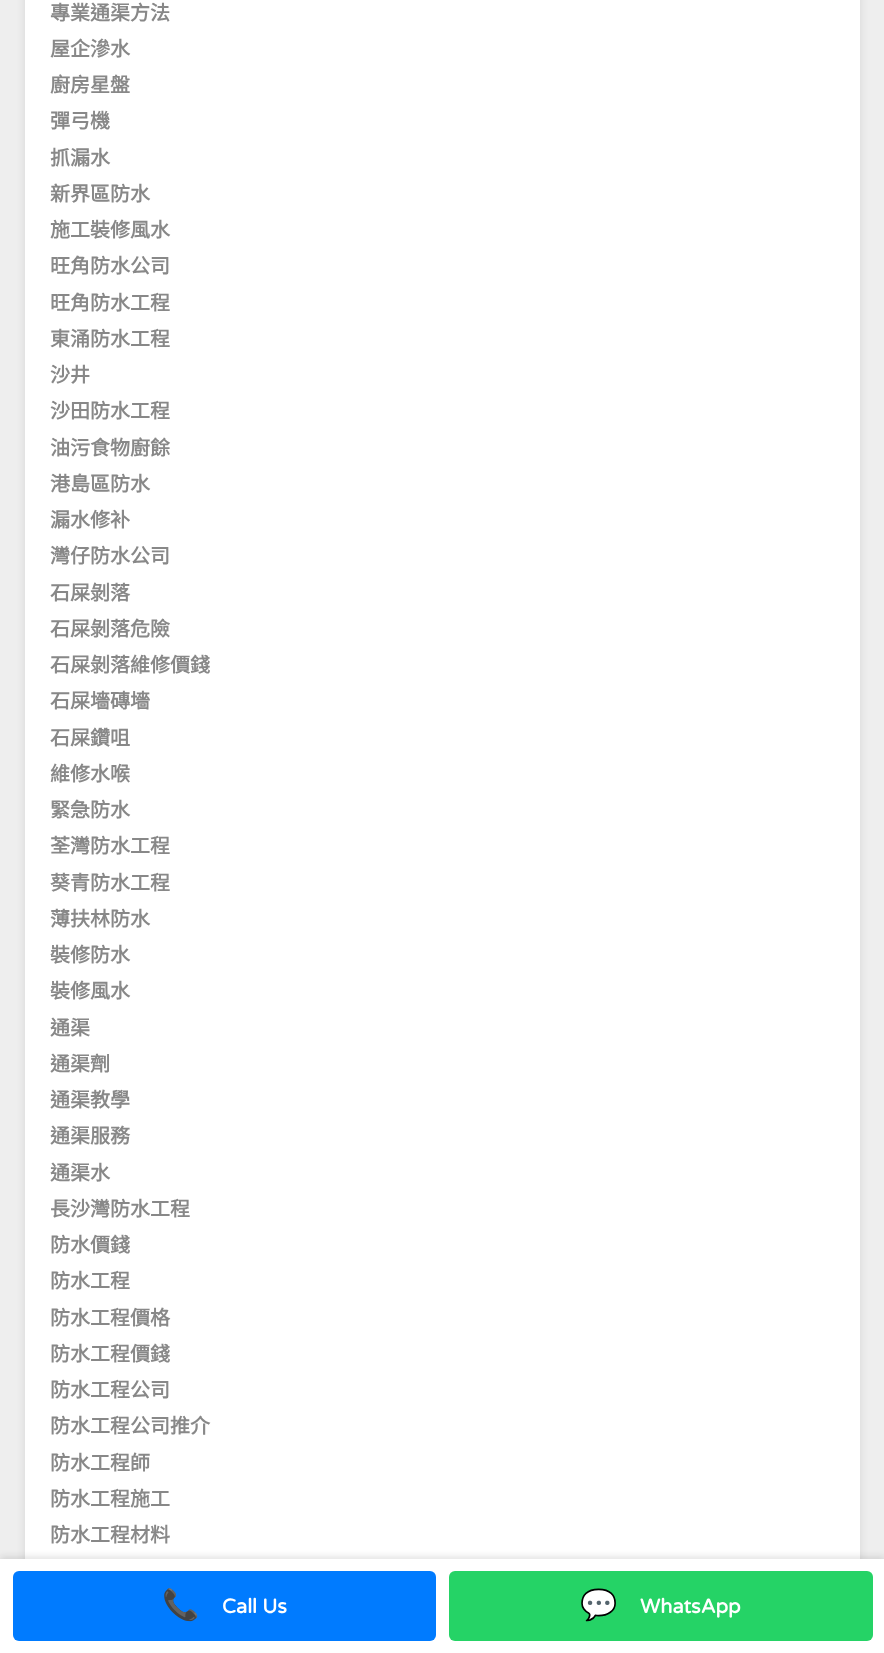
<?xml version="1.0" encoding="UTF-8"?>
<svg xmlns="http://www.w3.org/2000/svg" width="884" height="1653">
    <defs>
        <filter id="blur1" x="-50%" y="-200%" width="200%" height="500%"><feGaussianBlur stdDeviation="4"/></filter>
        <filter id="blur2" x="-50%" y="-200%" width="200%" height="500%"><feGaussianBlur stdDeviation="3"/></filter>
    </defs>
    <rect width="100%" height="100%" fill="#EEEEEE"/>
    <rect x="25" y="-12" width="835" height="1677" fill="#000000" fill-opacity="0.1" filter="url(#blur1)"/>
    <rect x="25" y="0" width="835" height="1559" fill="#FFFFFF"/>
    <text font-family="Noto Sans CJK HK" font-size="20" font-weight="700" fill="#888888">
        <tspan x="50" y="20">專業通渠方法</tspan>
        <tspan x="50" y="56">屋企滲水</tspan>
        <tspan x="50" y="92">廚房星盤</tspan>
        <tspan x="50" y="128">彈弓機</tspan>
        <tspan x="50" y="165">抓漏水</tspan>
        <tspan x="50" y="201">新界區防水</tspan>
        <tspan x="50" y="237">施工裝修風水</tspan>
        <tspan x="50" y="273">旺角防水公司</tspan>
        <tspan x="50" y="310">旺角防水工程</tspan>
        <tspan x="50" y="346">東涌防水工程</tspan>
        <tspan x="50" y="382">沙井</tspan>
        <tspan x="50" y="418">沙田防水工程</tspan>
        <tspan x="50" y="455">油污食物廚餘</tspan>
        <tspan x="50" y="491">港島區防水</tspan>
        <tspan x="50" y="527">漏水修补</tspan>
        <tspan x="50" y="563">灣仔防水公司</tspan>
        <tspan x="50" y="600">石屎剝落</tspan>
        <tspan x="50" y="636">石屎剝落危險</tspan>
        <tspan x="50" y="672">石屎剝落維修價錢</tspan>
        <tspan x="50" y="708">石屎墻磚墻</tspan>
        <tspan x="50" y="745">石屎鑽咀</tspan>
        <tspan x="50" y="781">維修水喉</tspan>
        <tspan x="50" y="817">緊急防水</tspan>
        <tspan x="50" y="853">荃灣防水工程</tspan>
        <tspan x="50" y="890">葵青防水工程</tspan>
        <tspan x="50" y="926">薄扶林防水</tspan>
        <tspan x="50" y="962">裝修防水</tspan>
        <tspan x="50" y="998">裝修風水</tspan>
        <tspan x="50" y="1035">通渠</tspan>
        <tspan x="50" y="1071">通渠劑</tspan>
        <tspan x="50" y="1107">通渠教學</tspan>
        <tspan x="50" y="1143">通渠服務</tspan>
        <tspan x="50" y="1180">通渠水</tspan>
        <tspan x="50" y="1216">長沙灣防水工程</tspan>
        <tspan x="50" y="1252">防水價錢</tspan>
        <tspan x="50" y="1288">防水工程</tspan>
        <tspan x="50" y="1325">防水工程價格</tspan>
        <tspan x="50" y="1361">防水工程價錢</tspan>
        <tspan x="50" y="1397">防水工程公司</tspan>
        <tspan x="50" y="1433">防水工程公司推介</tspan>
        <tspan x="50" y="1470">防水工程師</tspan>
        <tspan x="50" y="1506">防水工程施工</tspan>
        <tspan x="50" y="1542">防水工程材料</tspan>
    </text>
    <rect x="0" y="1556" width="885" height="95" fill="#000000" fill-opacity="0.1" filter="url(#blur2)"/>
    <rect x="0" y="1559" width="884" height="94" fill="#FFFFFF"/>
    <rect x="13" y="1571" width="423" height="70" rx="6" fill="#007BFF"/>
    <text x="162" y="1615" font-family="Noto Color Emoji" font-size="30" fill="#FFFFFF">📞</text>
    <text x="222" y="1613" font-family="Varela Round" font-size="20" font-weight="700" fill="#FFFFFF">Call Us</text>
    <rect x="449" y="1571" width="424" height="70" rx="6" fill="#25D366"/>
    <text x="580" y="1615" font-family="Noto Color Emoji" font-size="30" fill="#FFFFFF">💬</text>
    <text x="640" y="1613" font-family="Varela Round" font-size="20" font-weight="700" fill="#FFFFFF">WhatsApp</text>
</svg>
